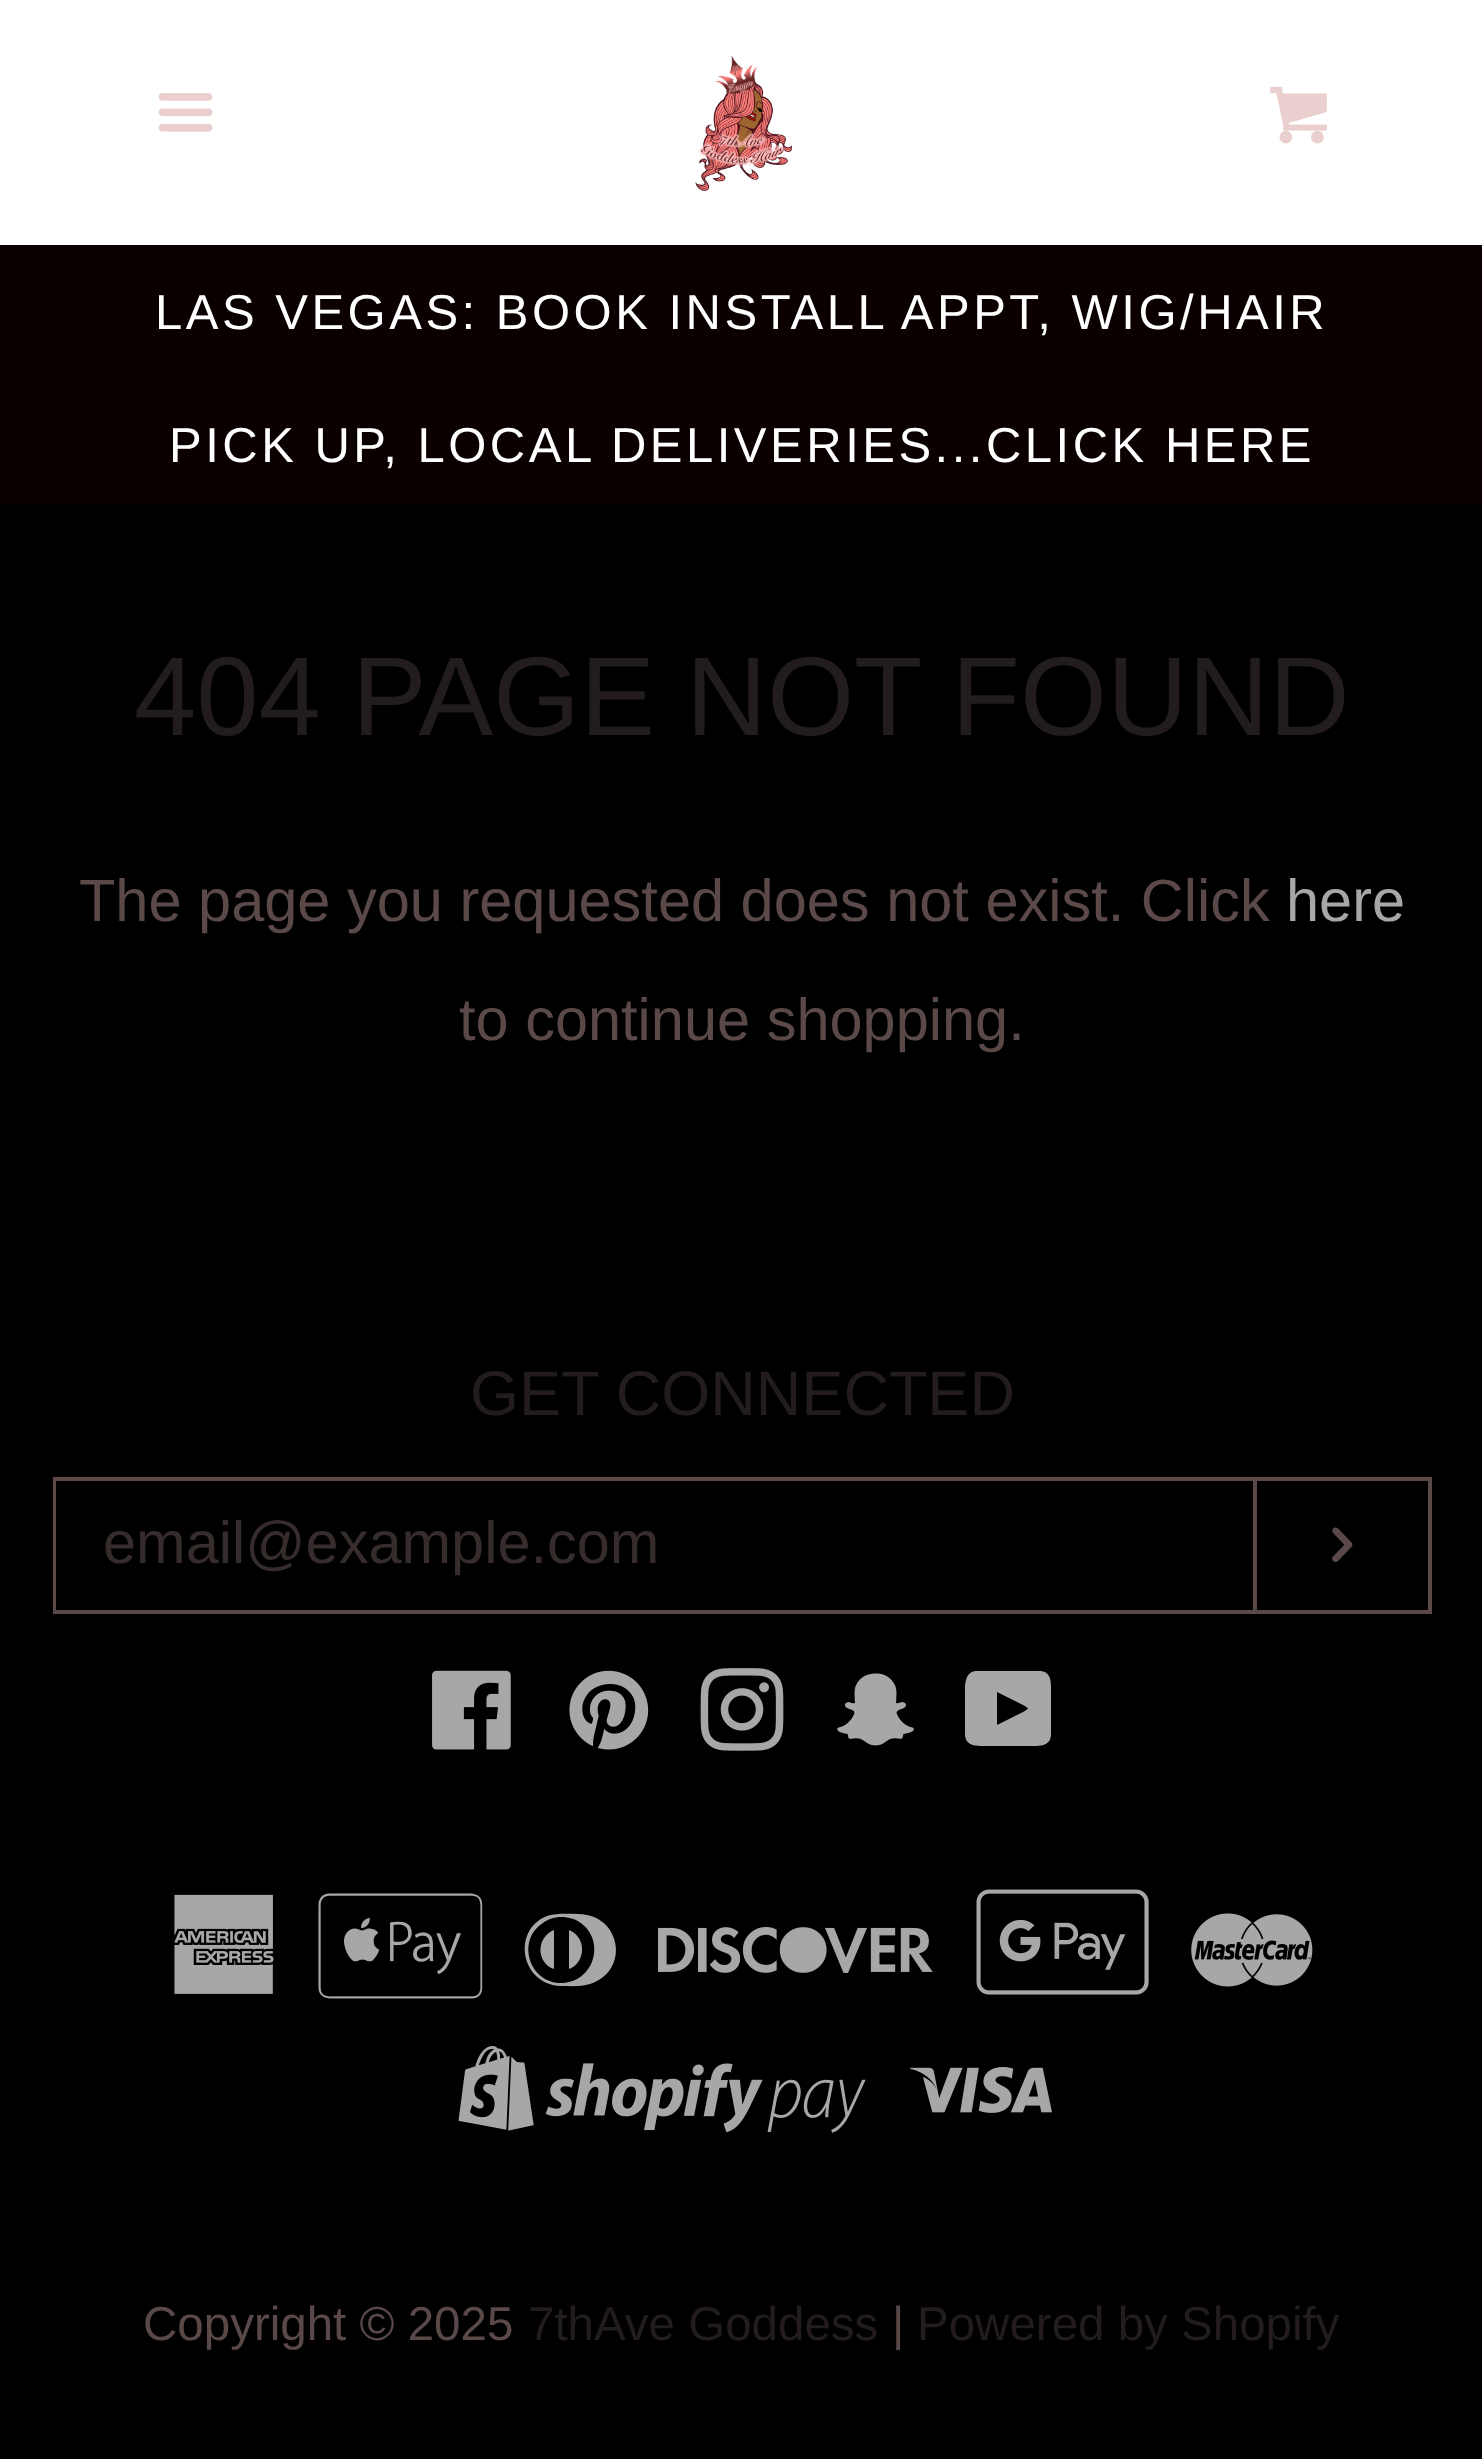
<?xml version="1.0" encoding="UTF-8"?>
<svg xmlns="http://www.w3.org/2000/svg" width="1482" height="2459">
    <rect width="100%" height="100%" fill="#FFFFFF"/>
    <image x="158" y="93" width="55" height="39" href="img_01.png"/>
    <image x="695" y="55" width="99" height="137" href="img_02.png"/>
    <image x="1270" y="86" width="57" height="58" href="img_03.png"/>
    <rect x="0" y="504" width="1482" height="1955" fill="#000000"/>
    <rect x="0" y="245" width="1482" height="259" fill="#0A0000"/>
    <text x="155" y="329" font-family="Liberation Sans" font-size="49" letter-spacing="3.5" fill="#FFFFFF">LAS VEGAS: BOOK INSTALL APPT, WIG/HAIR</text>
    <text x="169" y="462" font-family="Liberation Sans" font-size="49" letter-spacing="3.5" fill="#FFFFFF">PICK UP, LOCAL DELIVERIES...CLICK HERE</text>
    <text x="134" y="735" font-family="Liberation Sans" font-size="112" fill="#221C1C">404 PAGE NOT FOUND</text>
    <text x="79" y="921" font-family="Liberation Sans" font-size="59.5" fill="#5B4949">The page you requested does not exist. Click</text>
    <text x="1286" y="921" font-family="Liberation Sans" font-size="59.5" fill="#A7A7A7">here</text>
    <text x="459" y="1040" font-family="Liberation Sans" font-size="59.5" fill="#5B4949">to continue shopping.</text>
    <text x="470" y="1415" font-family="Liberation Sans" font-size="63" fill="#221C1C">GET CONNECTED</text>
    <rect x="55" y="1479" width="1375" height="133" fill="none" stroke="#5B4949" stroke-width="4"/>
    <rect x="56" y="1481" width="1" height="129" fill="#000000"/>
    <rect x="1253" y="1481" width="4" height="129" fill="#5B4949"/>
    <text x="103" y="1563" font-family="Liberation Sans" font-size="59.5" fill="#372C2C">email@example.com</text>
    <image x="1332" y="1527" width="21" height="35" href="img_04.png"/>
    <image x="432" y="1670" width="79" height="80" href="img_05.png"/>
    <image x="569" y="1670" width="80" height="80" href="img_06.png"/>
    <image x="700" y="1668" width="84" height="83" href="img_07.png"/>
    <image x="837" y="1673" width="77" height="73" href="img_08.png"/>
    <path d="M 965 1734 C 965 1747 978 1746 987 1746 H 1029 C 1039 1746 1051 1747 1051 1734 V 1692 C 1051 1684 1052 1672 1041 1671 H 976 C 965 1672 965 1684 965 1692 Z M 997 1725 V 1692 L 1023 1705 C 1030 1709 1029 1708 1023 1712 Z" fill="#A7A7A7"/>
    <image x="174" y="1894" width="100" height="100" href="img_09.png"/>
    <image x="318" y="1893" width="165" height="106" href="img_10.png"/>
    <path d="M 578 1914 C 621 1914 631 1971 590 1984 C 581 1987 571 1986 561 1986 C 521 1985 511 1930 547 1916 C 557 1913 568 1914 578 1914 Z M 561 1983 C 593 1983 606 1943 582 1924 C 576 1919 569 1917 561 1917 C 555 1917 548 1919 543 1923 C 516 1940 529 1983 561 1983 Z M 554 1969 C 536 1963 536 1937 554 1930 Z M 569 1930 C 587 1937 586 1963 569 1969 Z" fill="#A7A7A7"/>
    <image x="658" y="1927" width="275" height="46" href="img_11.png"/>
    <image x="976" y="1889" width="173" height="106" href="img_12.png"/>
    <image x="1191" y="1913" width="122" height="74" href="img_13.png"/>
    <image x="458" y="2046" width="408" height="87" href="img_14.png"/>
    <image x="910" y="2067" width="142" height="46" href="img_15.png"/>
    <text x="143" y="2340" font-family="Liberation Sans" font-size="47.5" fill="#5B4949">Copyright © 2025</text>
    <text x="528" y="2340" font-family="Liberation Sans" font-size="47.5" fill="#221C1C">7thAve Goddess</text>
    <text x="892" y="2340" font-family="Liberation Sans" font-size="47.5" fill="#5B4949">|</text>
    <text x="917" y="2340" font-family="Liberation Sans" font-size="47.5" fill="#221C1C">Powered by Shopify</text>
</svg>
